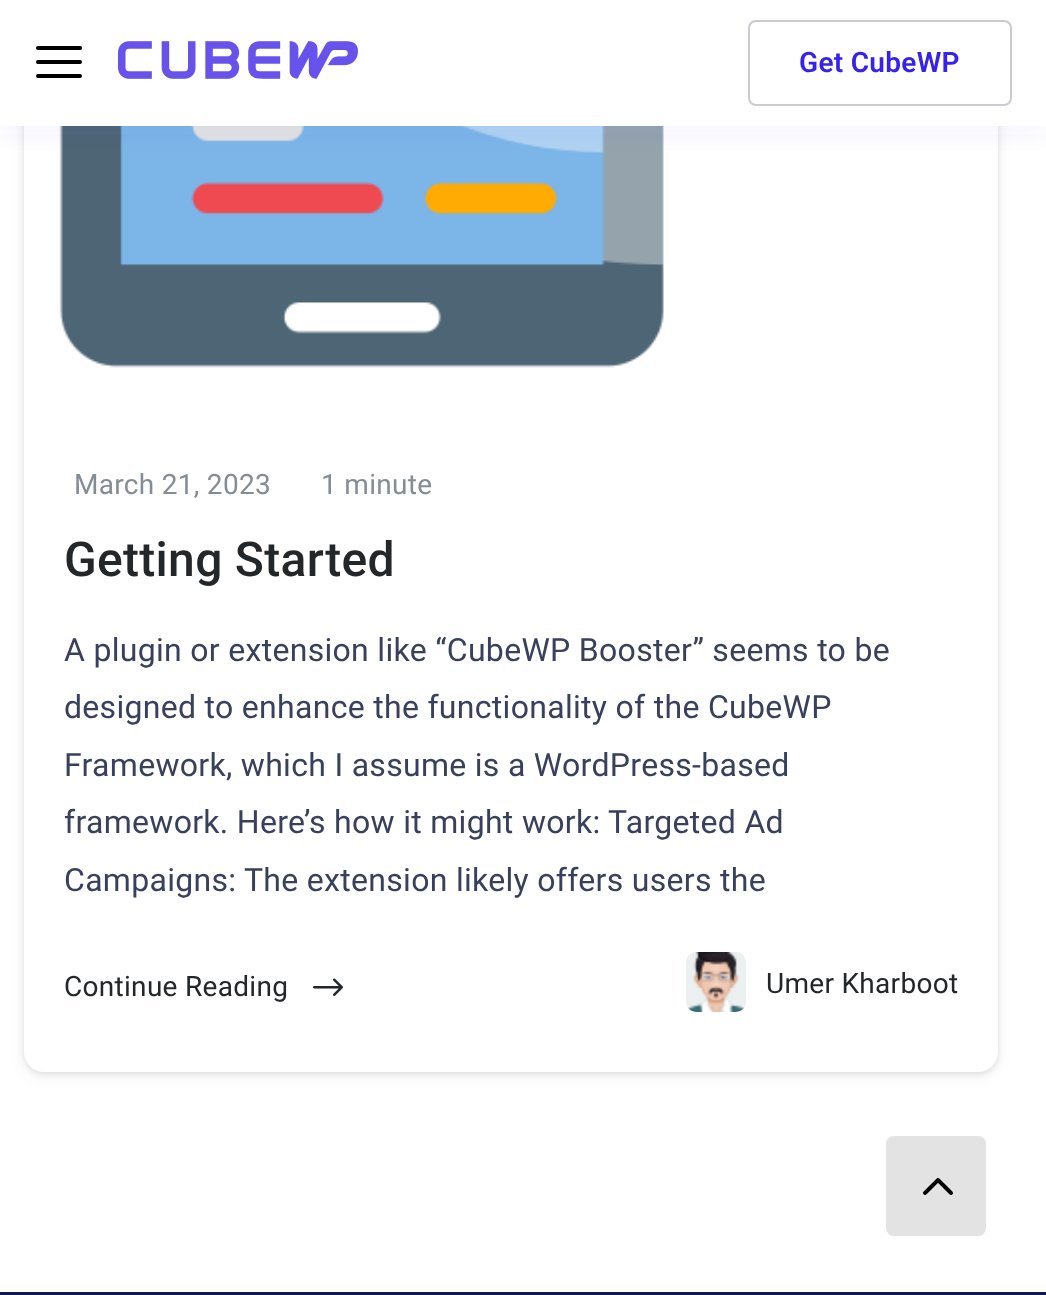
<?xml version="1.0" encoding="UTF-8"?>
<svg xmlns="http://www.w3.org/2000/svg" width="1046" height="1295">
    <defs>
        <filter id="blur1" x="-50%" y="-200%" width="200%" height="500%"><feGaussianBlur stdDeviation="8"/></filter>
        <filter id="blur2" x="-50%" y="-200%" width="200%" height="500%"><feGaussianBlur stdDeviation="4"/></filter>
        <filter id="blur3" x="-50%" y="-200%" width="200%" height="500%"><feGaussianBlur stdDeviation="2"/></filter>
        <filter id="blur4" x="-50%" y="-200%" width="200%" height="500%"><feGaussianBlur stdDeviation="10"/></filter>
    </defs>
    <rect width="100%" height="100%" fill="#FFFFFF"/>
    <rect x="24" y="-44" width="974" height="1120" rx="20" fill="#000000" fill-opacity="0.05" filter="url(#blur1)"/>
    <rect x="24" y="-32" width="974" height="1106" rx="20" fill="#000000" fill-opacity="0.05" filter="url(#blur2)"/>
    <rect x="24" y="-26" width="974" height="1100" rx="20" fill="#000000" fill-opacity="0.05" filter="url(#blur3)"/>
    <rect x="24" y="-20" width="974" height="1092" rx="20" fill="#FFFFFF"/>
    <image x="59" y="126" width="605" height="242" href="img_02.png"/>
    <rect x="0" y="8" width="1046" height="126" fill="#4C4CF1" fill-opacity="0.06" filter="url(#blur4)"/>
    <rect x="0" y="0" width="1046" height="126" fill="#FFFFFF"/>
    <rect x="36" y="46" width="46" height="4" rx="2" fill="#000000"/>
    <rect x="36" y="60" width="46" height="4" rx="2" fill="#000000"/>
    <rect x="36" y="74" width="46" height="4" rx="2" fill="#000000"/>
    <image x="118" y="41" width="240" height="38" href="img_01.png"/>
    <rect x="749" y="21" width="262" height="84" rx="7" fill="none" stroke="#C8CCD0" stroke-width="2"/>
    <text x="799" y="72" font-family="Roboto" font-size="28" font-weight="600" letter-spacing="0.3" fill="#3622ED">Get CubeWP</text>
    <text x="74" y="494" font-family="Roboto" font-size="28" letter-spacing="0.3" fill="#848D95">March 21, 2023</text>
    <text x="321" y="494" font-family="Roboto" font-size="28" letter-spacing="0.3" fill="#848D95">1 minute</text>
    <text x="64" y="576" font-family="Roboto" font-size="48" font-weight="500" letter-spacing="0.3" fill="#242729">Getting Started</text>
    <text font-family="Roboto" font-size="32" letter-spacing="0.3" fill="#39405B">
        <tspan x="64" y="661">A plugin or extension like “CubeWP Booster” seems to be</tspan>
        <tspan x="64" y="718">designed to enhance the functionality of the CubeWP</tspan>
        <tspan x="64" y="776">Framework, which I assume is a WordPress-based</tspan>
        <tspan x="64" y="833">framework. Here’s how it might work: Targeted Ad</tspan>
        <tspan x="64" y="891">Campaigns: The extension likely offers users the</tspan>
    </text>
    <text x="64" y="996" font-family="Roboto" font-size="28" letter-spacing="0.3" fill="#242729">Continue Reading</text>
    <image x="313" y="978" width="30" height="18" href="img_03.png"/>
    <image x="686" y="952" width="60" height="60" href="img_04.png"/>
    <text x="766" y="993" font-family="Roboto" font-size="28" letter-spacing="0.3" fill="#242729">Umer Kharboot</text>
    <rect x="0" y="1292" width="1046" height="3" fill="#081D4D"/>
    <rect x="886" y="1136" width="100" height="100" rx="8" fill="#E3E3E3"/>
    <image x="923" y="1178" width="30" height="17" href="img_05.png"/>
</svg>
